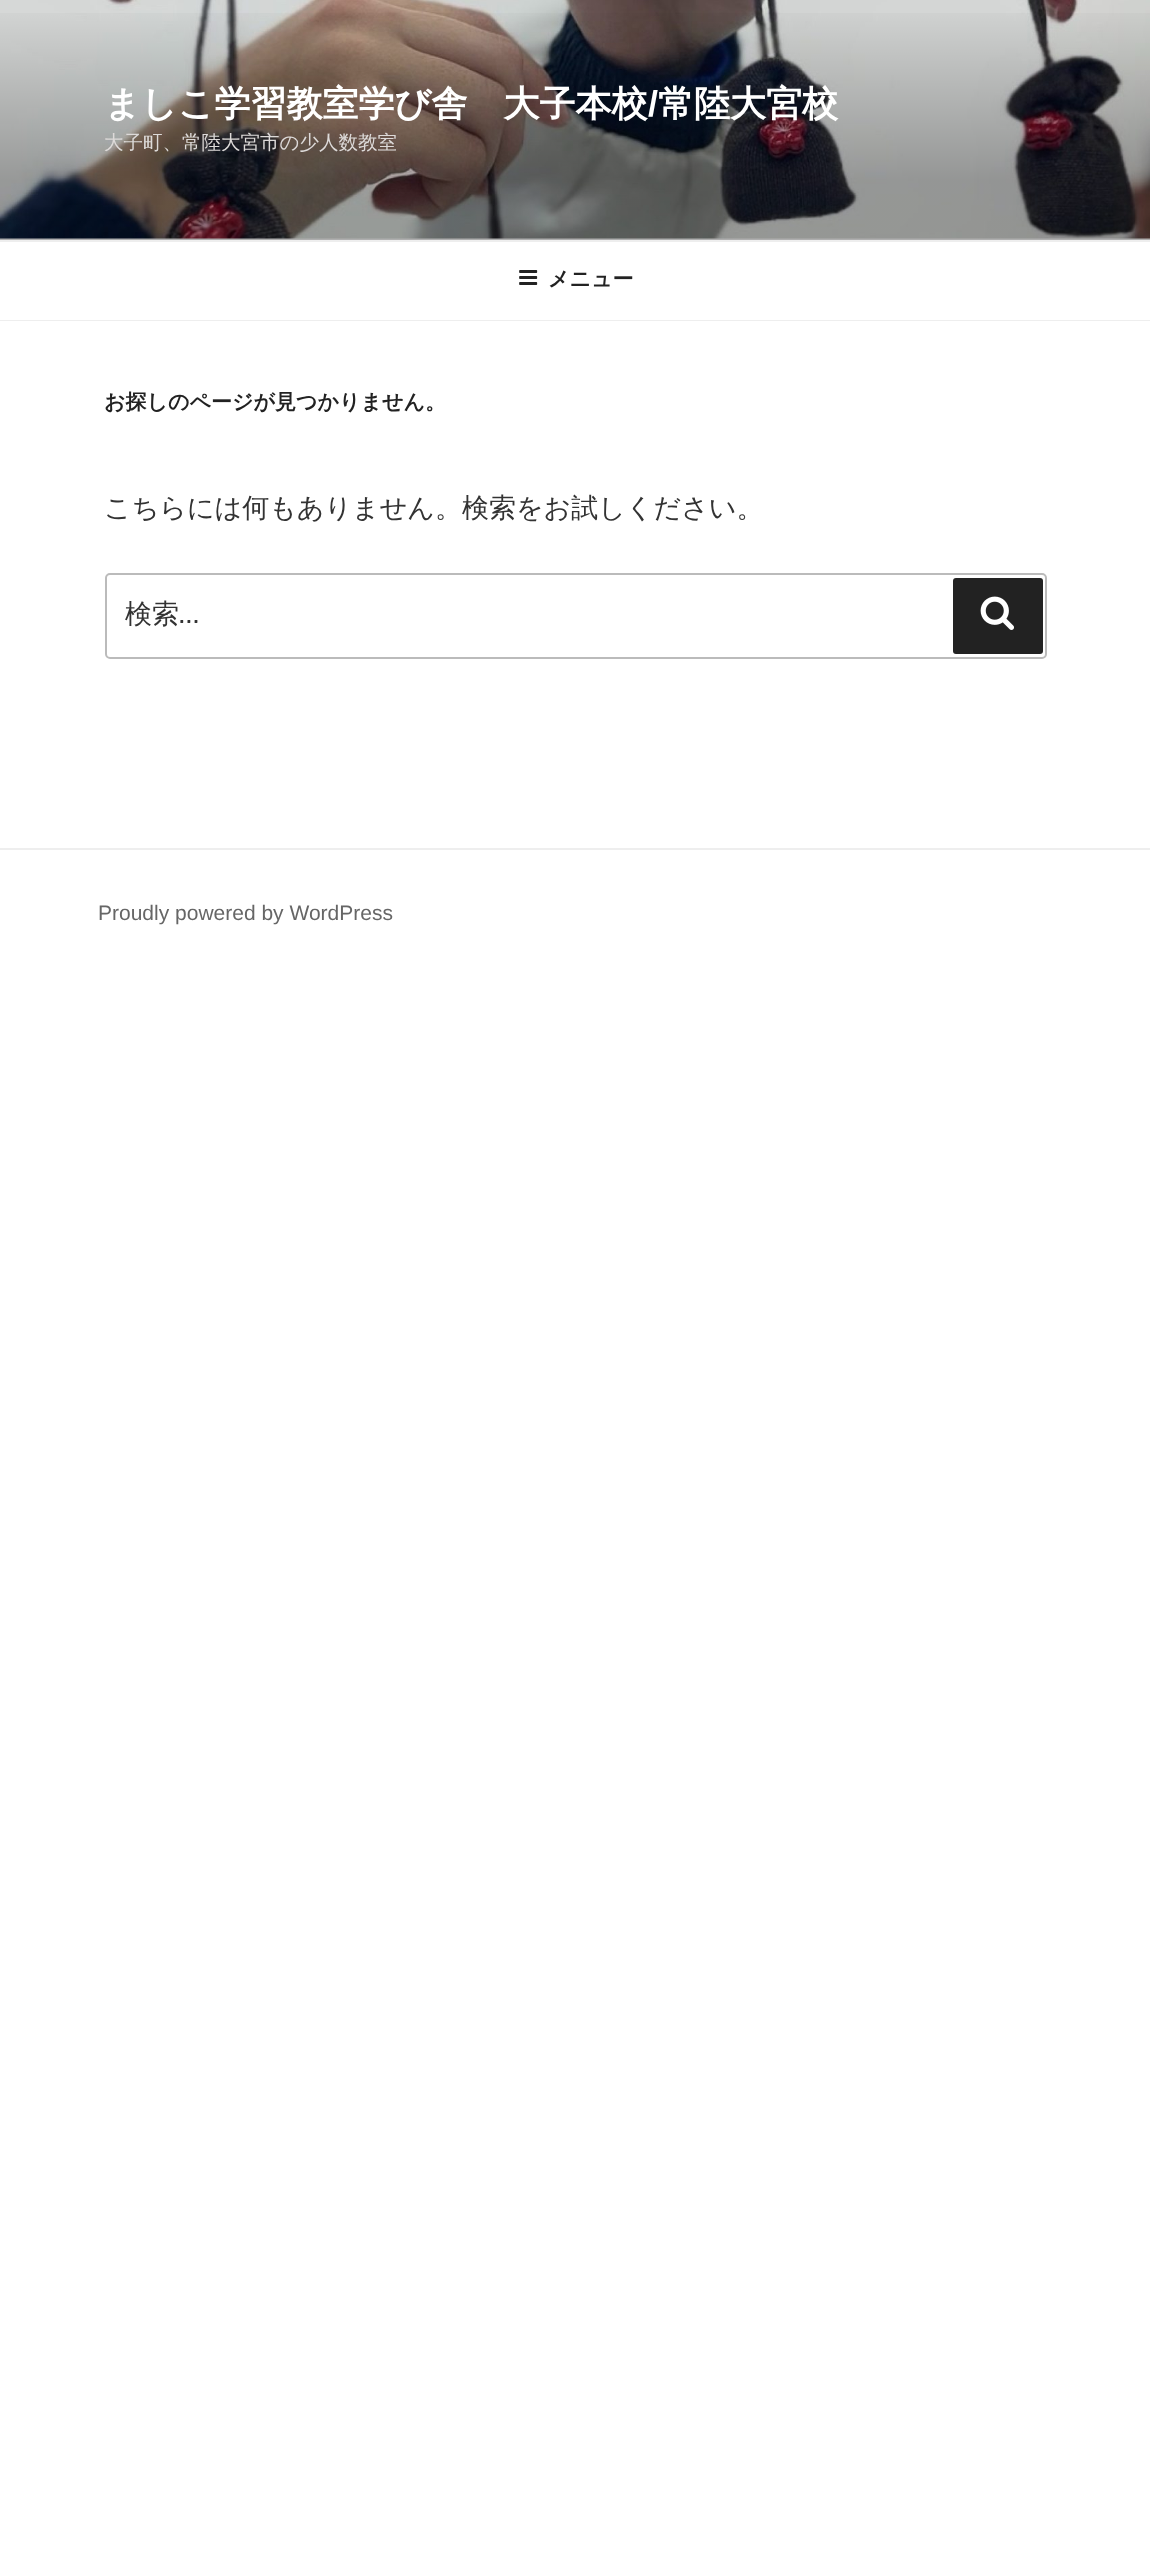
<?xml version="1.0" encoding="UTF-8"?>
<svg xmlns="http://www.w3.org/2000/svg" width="1150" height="2551">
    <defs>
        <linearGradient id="g1" gradientUnits="userSpaceOnUse" x1="575" y1="0" x2="575" y2="240"><stop offset="0" stop-color="#000000" stop-opacity="0"/><stop offset="0.75" stop-color="#000000" stop-opacity="0.3"/><stop offset="1" stop-color="#000000" stop-opacity="0.3"/></linearGradient>
    </defs>
    <rect width="100%" height="100%" fill="#FFFFFF"/>
    <rect x="0" y="238" width="1150" height="2" fill="#FAFAFA"/>
    <image x="0" y="0" width="1150" height="239" href="img_01.png"/>
    <rect x="0" y="13" width="1150" height="227" fill="url(#g1)"/>
    <text x="104" y="116" font-family="WenQuanYi Zen Hei" font-size="36" font-weight="700" fill="#FFFFFF">ましこ学習教室学び舎　大子本校</text>
    <text x="648" y="116" font-family="Liberation Sans" font-size="36" font-weight="700" fill="#FFFFFF">/</text>
    <text x="658" y="116" font-family="WenQuanYi Zen Hei" font-size="36" font-weight="700" fill="#FFFFFF">常陸大宮校</text>
    <text x="104" y="149" font-family="WenQuanYi Zen Hei" font-size="19.5" font-weight="500" fill="#DDDAD9">大子町、常陸大宮市の少人数教室</text>
    <rect x="0" y="240" width="1150" height="2" fill="#EEEEEE"/>
    <rect x="0" y="320" width="1150" height="1" fill="#EEEEEE"/>
    <image x="519" y="270" width="19" height="15" href="img_02.png"/>
    <text x="548" y="286" font-family="WenQuanYi Zen Hei" font-size="21" font-weight="700" fill="#222222">メニュー</text>
    <text x="104" y="409" font-family="WenQuanYi Zen Hei" font-size="21" font-weight="700" fill="#222222">お探しのページが見つかりません。</text>
    <text x="104" y="517" font-family="WenQuanYi Zen Hei" font-size="27" font-weight="500" fill="#333333">こちらには何もありません。検索をお試しください。</text>
    <rect x="106" y="574" width="940" height="84" rx="4" fill="none" stroke="#BBBBBB" stroke-width="2"/>
    <text x="125" y="623" font-family="WenQuanYi Zen Hei" font-size="27" font-weight="500" fill="#333333">検索</text>
    <text x="179" y="623" font-family="Libre Franklin" font-size="27" fill="#333333">…</text>
    <rect x="953" y="578" width="90" height="76" rx="3" fill="#222222"/>
    <image x="980" y="596" width="34" height="34" href="img_03.png"/>
    <rect x="0" y="848" width="1150" height="2" fill="#EEEEEE"/>
    <text x="98" y="920" font-family="Liberation Sans" font-size="21" fill="#666666">Proudly powered by WordPress</text>
</svg>
